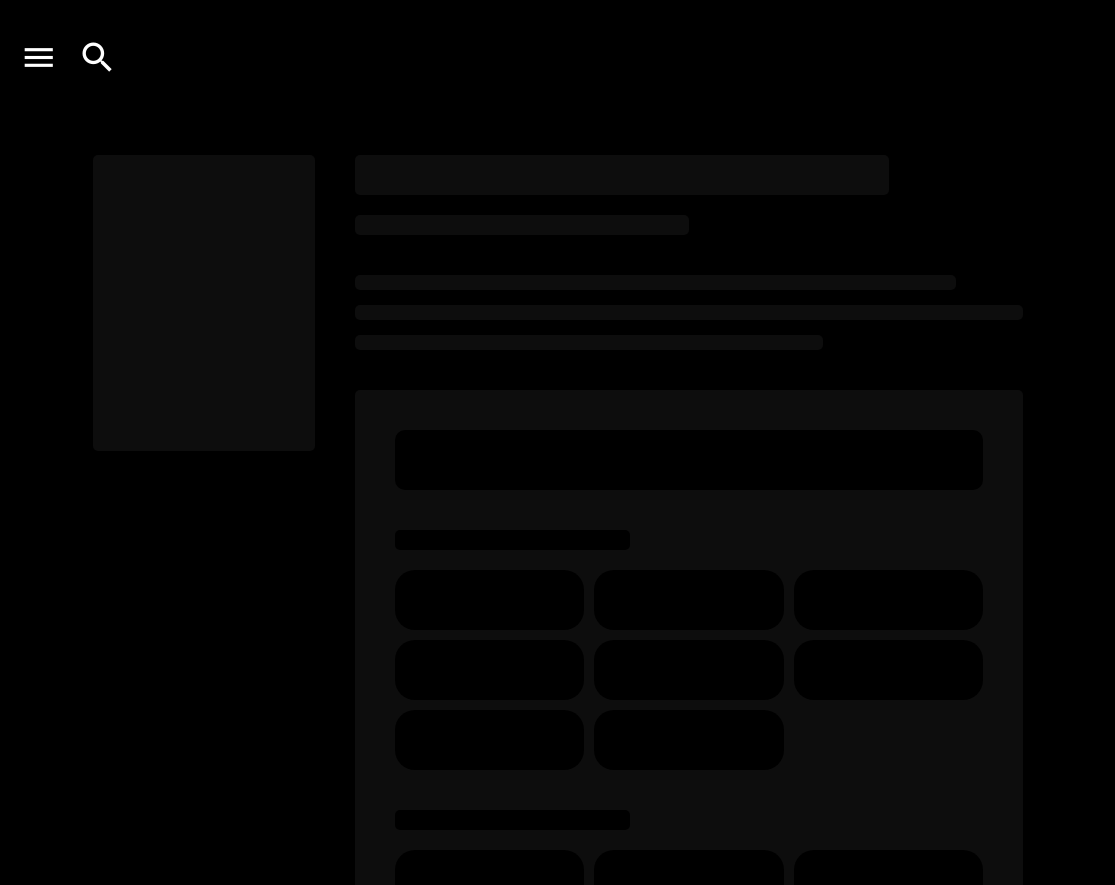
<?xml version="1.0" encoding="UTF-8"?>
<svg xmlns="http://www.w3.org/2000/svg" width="1115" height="885">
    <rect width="100%" height="100%" fill="#000000"/>
    <image x="24" y="48" width="29" height="19" href="img_01.png"/>
    <image x="82" y="42" width="30" height="30" href="img_02.png"/>
    <rect x="93" y="155" width="222" height="296" rx="5" fill="#0D0D0D"/>
    <rect x="355" y="155" width="534" height="40" rx="5" fill="#0D0D0D"/>
    <rect x="355" y="215" width="334" height="20" rx="5" fill="#0D0D0D"/>
    <rect x="355" y="275" width="601" height="15" rx="5" fill="#0D0D0D"/>
    <rect x="355" y="305" width="668" height="15" rx="5" fill="#0D0D0D"/>
    <rect x="355" y="335" width="468" height="15" rx="5" fill="#0D0D0D"/>
    <rect x="355" y="390" width="668" height="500" rx="5" fill="#0D0D0D"/>
    <rect x="395" y="430" width="588" height="60" rx="10" fill="#000000"/>
    <rect x="395" y="530" width="235" height="20" rx="5" fill="#000000"/>
    <rect x="395" y="570" width="189" height="60" rx="20" fill="#000000"/>
    <rect x="594" y="570" width="190" height="60" rx="20" fill="#000000"/>
    <rect x="794" y="570" width="189" height="60" rx="20" fill="#000000"/>
    <rect x="395" y="640" width="189" height="60" rx="20" fill="#000000"/>
    <rect x="594" y="640" width="190" height="60" rx="20" fill="#000000"/>
    <rect x="794" y="640" width="189" height="60" rx="20" fill="#000000"/>
    <rect x="395" y="710" width="189" height="60" rx="20" fill="#000000"/>
    <rect x="594" y="710" width="190" height="60" rx="20" fill="#000000"/>
    <rect x="395" y="810" width="235" height="20" rx="5" fill="#000000"/>
    <rect x="395" y="850" width="189" height="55" rx="20" fill="#000000"/>
    <rect x="594" y="850" width="190" height="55" rx="20" fill="#000000"/>
    <rect x="794" y="850" width="189" height="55" rx="20" fill="#000000"/>
</svg>
